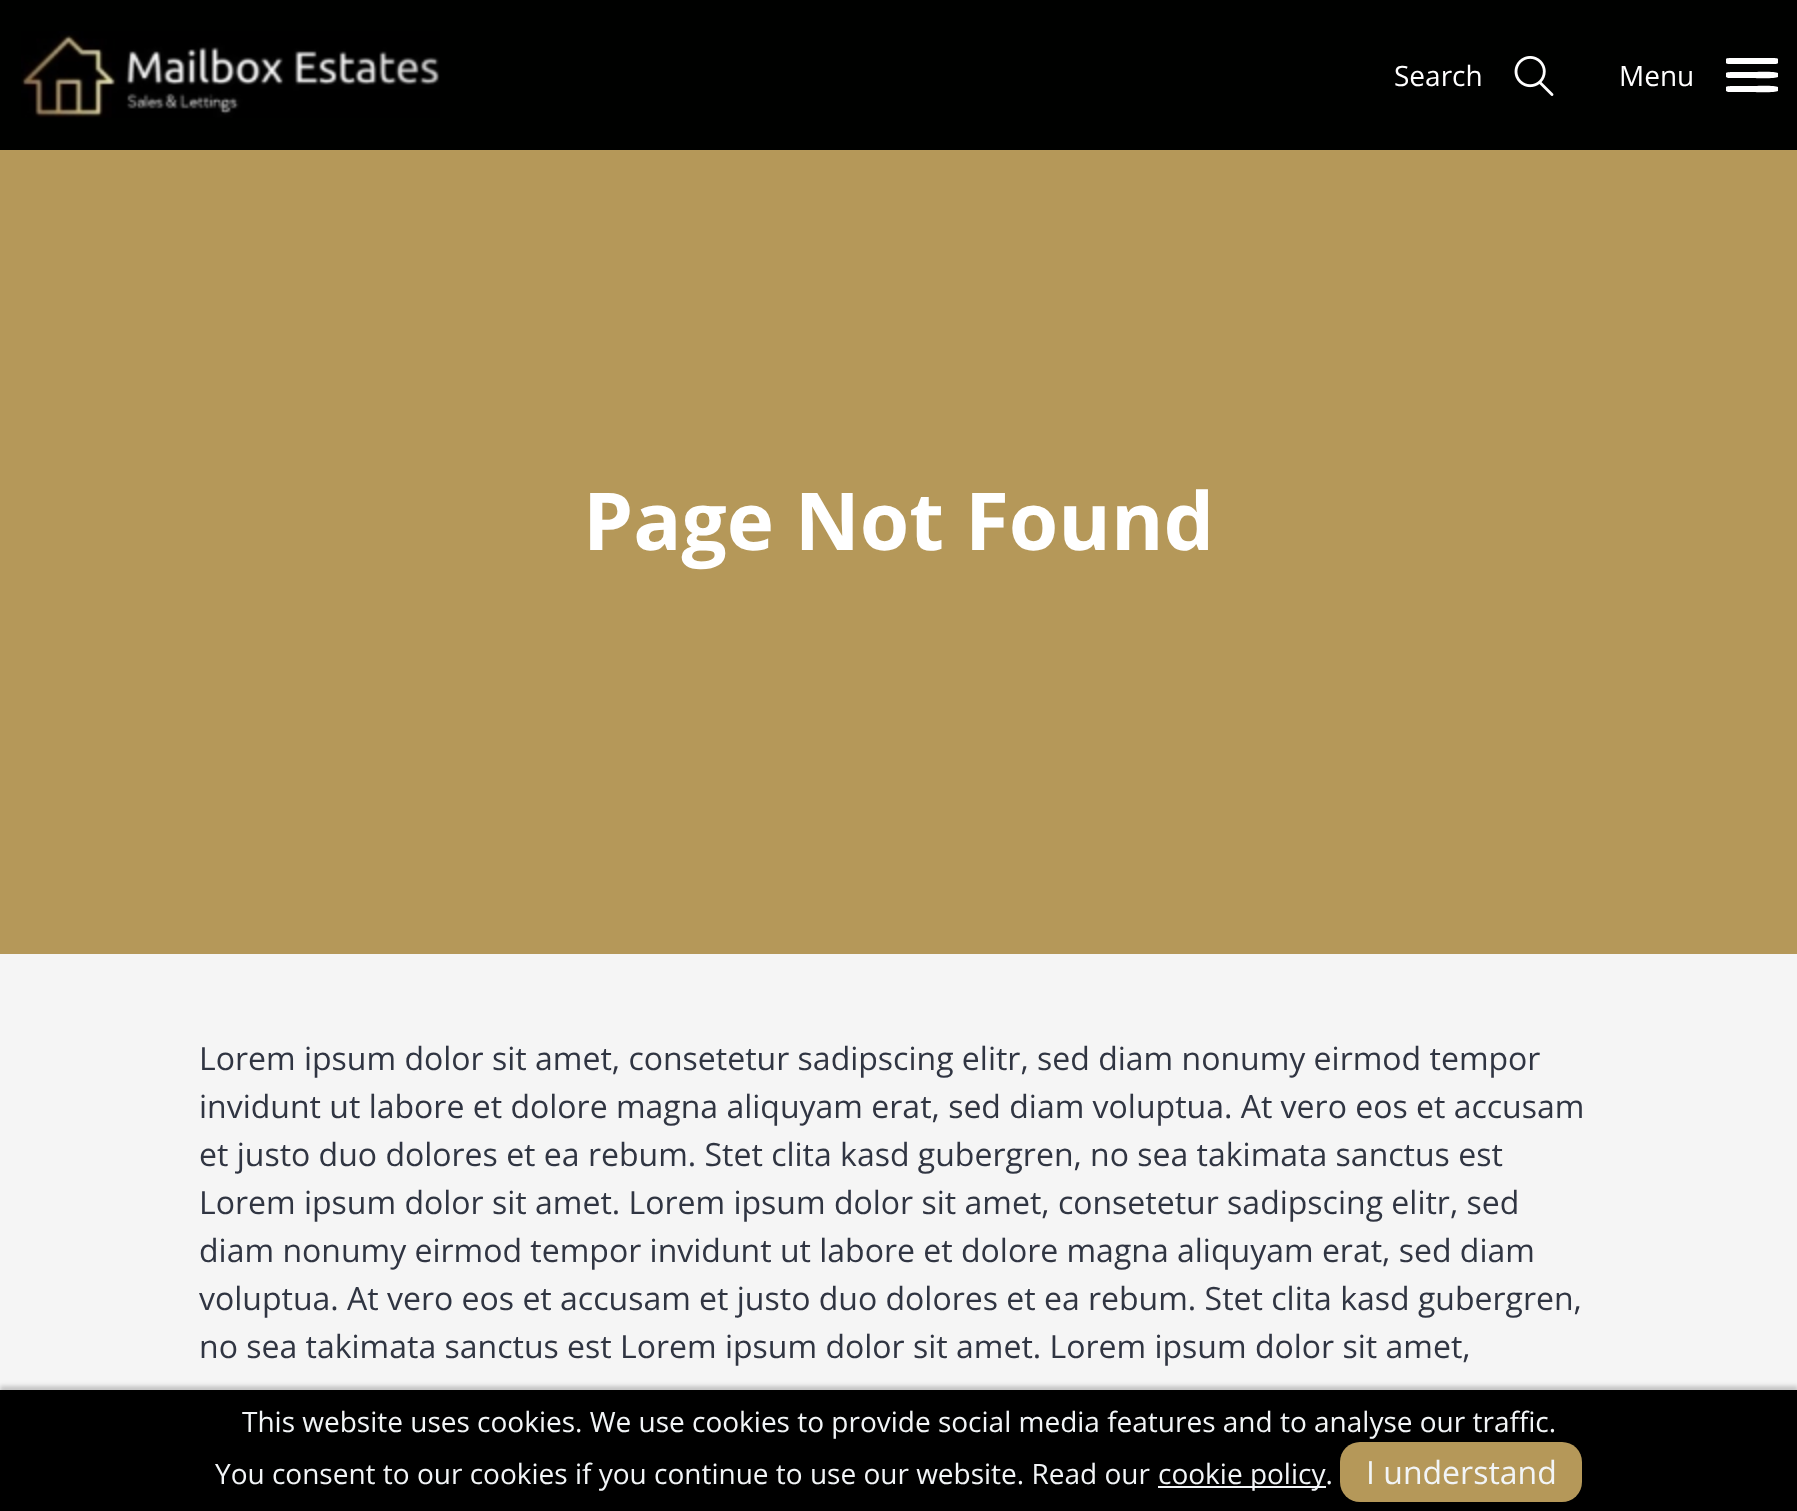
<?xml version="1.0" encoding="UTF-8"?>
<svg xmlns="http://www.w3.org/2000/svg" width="1797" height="1511">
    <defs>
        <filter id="blur1" x="-50%" y="-200%" width="200%" height="500%"><feGaussianBlur stdDeviation="2"/></filter>
    </defs>
    <rect width="100%" height="100%" fill="#F5F5F5"/>
    <rect x="0" y="0" width="1797" height="150" fill="#000100"/>
    <image x="21" y="31" width="419" height="87" href="img_01.png"/>
    <text x="1394" y="86" font-family="Open Sans" font-size="28" fill="#FFFFFF">Search</text>
    <image x="1514" y="56" width="40" height="40" href="img_02.png"/>
    <text x="1619" y="86" font-family="Open Sans" font-size="28" fill="#FFFFFF">Menu</text>
    <path d="M 1734 58 H 1770 C 1775 58 1778 58 1778 59 V 63 C 1778 64 1775 64 1770 64 H 1734 C 1729 64 1726 64 1726 63 V 59 C 1726 58 1729 58 1734 58 Z M 1734 72 H 1752 C 1755 72 1775 71 1778 73 V 77 C 1775 79 1755 78 1752 78 H 1728 L 1726 77 V 73 C 1726 72 1732 72 1734 72 Z M 1734 86 H 1752 C 1755 86 1775 85 1778 87 V 91 C 1775 93 1755 92 1752 92 H 1728 L 1726 91 V 87 C 1726 86 1732 86 1734 86 Z" fill="#FFFFFF"/>
    <rect x="0" y="150" width="1797" height="804" fill="#B59859"/>
    <text x="583" y="550" font-family="Open Sans" font-size="80" font-weight="700" fill="#FFFFFF">Page Not Found</text>
    <text font-family="Open Sans" font-size="32" fill="#303542">
        <tspan x="199" y="1070">Lorem ipsum dolor sit amet, consetetur sadipscing elitr, sed diam nonumy eirmod tempor</tspan>
        <tspan x="199" y="1118">invidunt ut labore et dolore magna aliquyam erat, sed diam voluptua. At vero eos et accusam</tspan>
        <tspan x="199" y="1166">et justo duo dolores et ea rebum. Stet clita kasd gubergren, no sea takimata sanctus est</tspan>
        <tspan x="199" y="1214">Lorem ipsum dolor sit amet. Lorem ipsum dolor sit amet, consetetur sadipscing elitr, sed</tspan>
        <tspan x="199" y="1262">diam nonumy eirmod tempor invidunt ut labore et dolore magna aliquyam erat, sed diam</tspan>
        <tspan x="199" y="1310">voluptua. At vero eos et accusam et justo duo dolores et ea rebum. Stet clita kasd gubergren,</tspan>
        <tspan x="199" y="1358">no sea takimata sanctus est Lorem ipsum dolor sit amet. Lorem ipsum dolor sit amet,</tspan>
    </text>
    <rect x="0" y="1386" width="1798" height="122" fill="#000000" fill-opacity="0.2" filter="url(#blur1)"/>
    <rect x="0" y="1390" width="1797" height="121" fill="#000000"/>
    <text x="242" y="1432" font-family="Open Sans" font-size="28" fill="#F2F5F7">This website uses cookies. We use cookies to provide social media features and to analyse our traffic.</text>
    <text x="215" y="1484" font-family="Open Sans" font-size="28" fill="#F2F5F7">You consent to our cookies if you continue to use our website. Read our</text>
    <rect x="1158" y="1486" width="168" height="2" fill="#F2F5F7"/>
    <text x="1158" y="1484" font-family="Open Sans" font-size="28" fill="#F2F5F7">cookie policy.</text>
    <rect x="1340" y="1442" width="242" height="60" rx="20" fill="#B59859"/>
    <text x="1366" y="1484" font-family="Open Sans" font-size="32" fill="#F2F5F7">I understand</text>
</svg>
